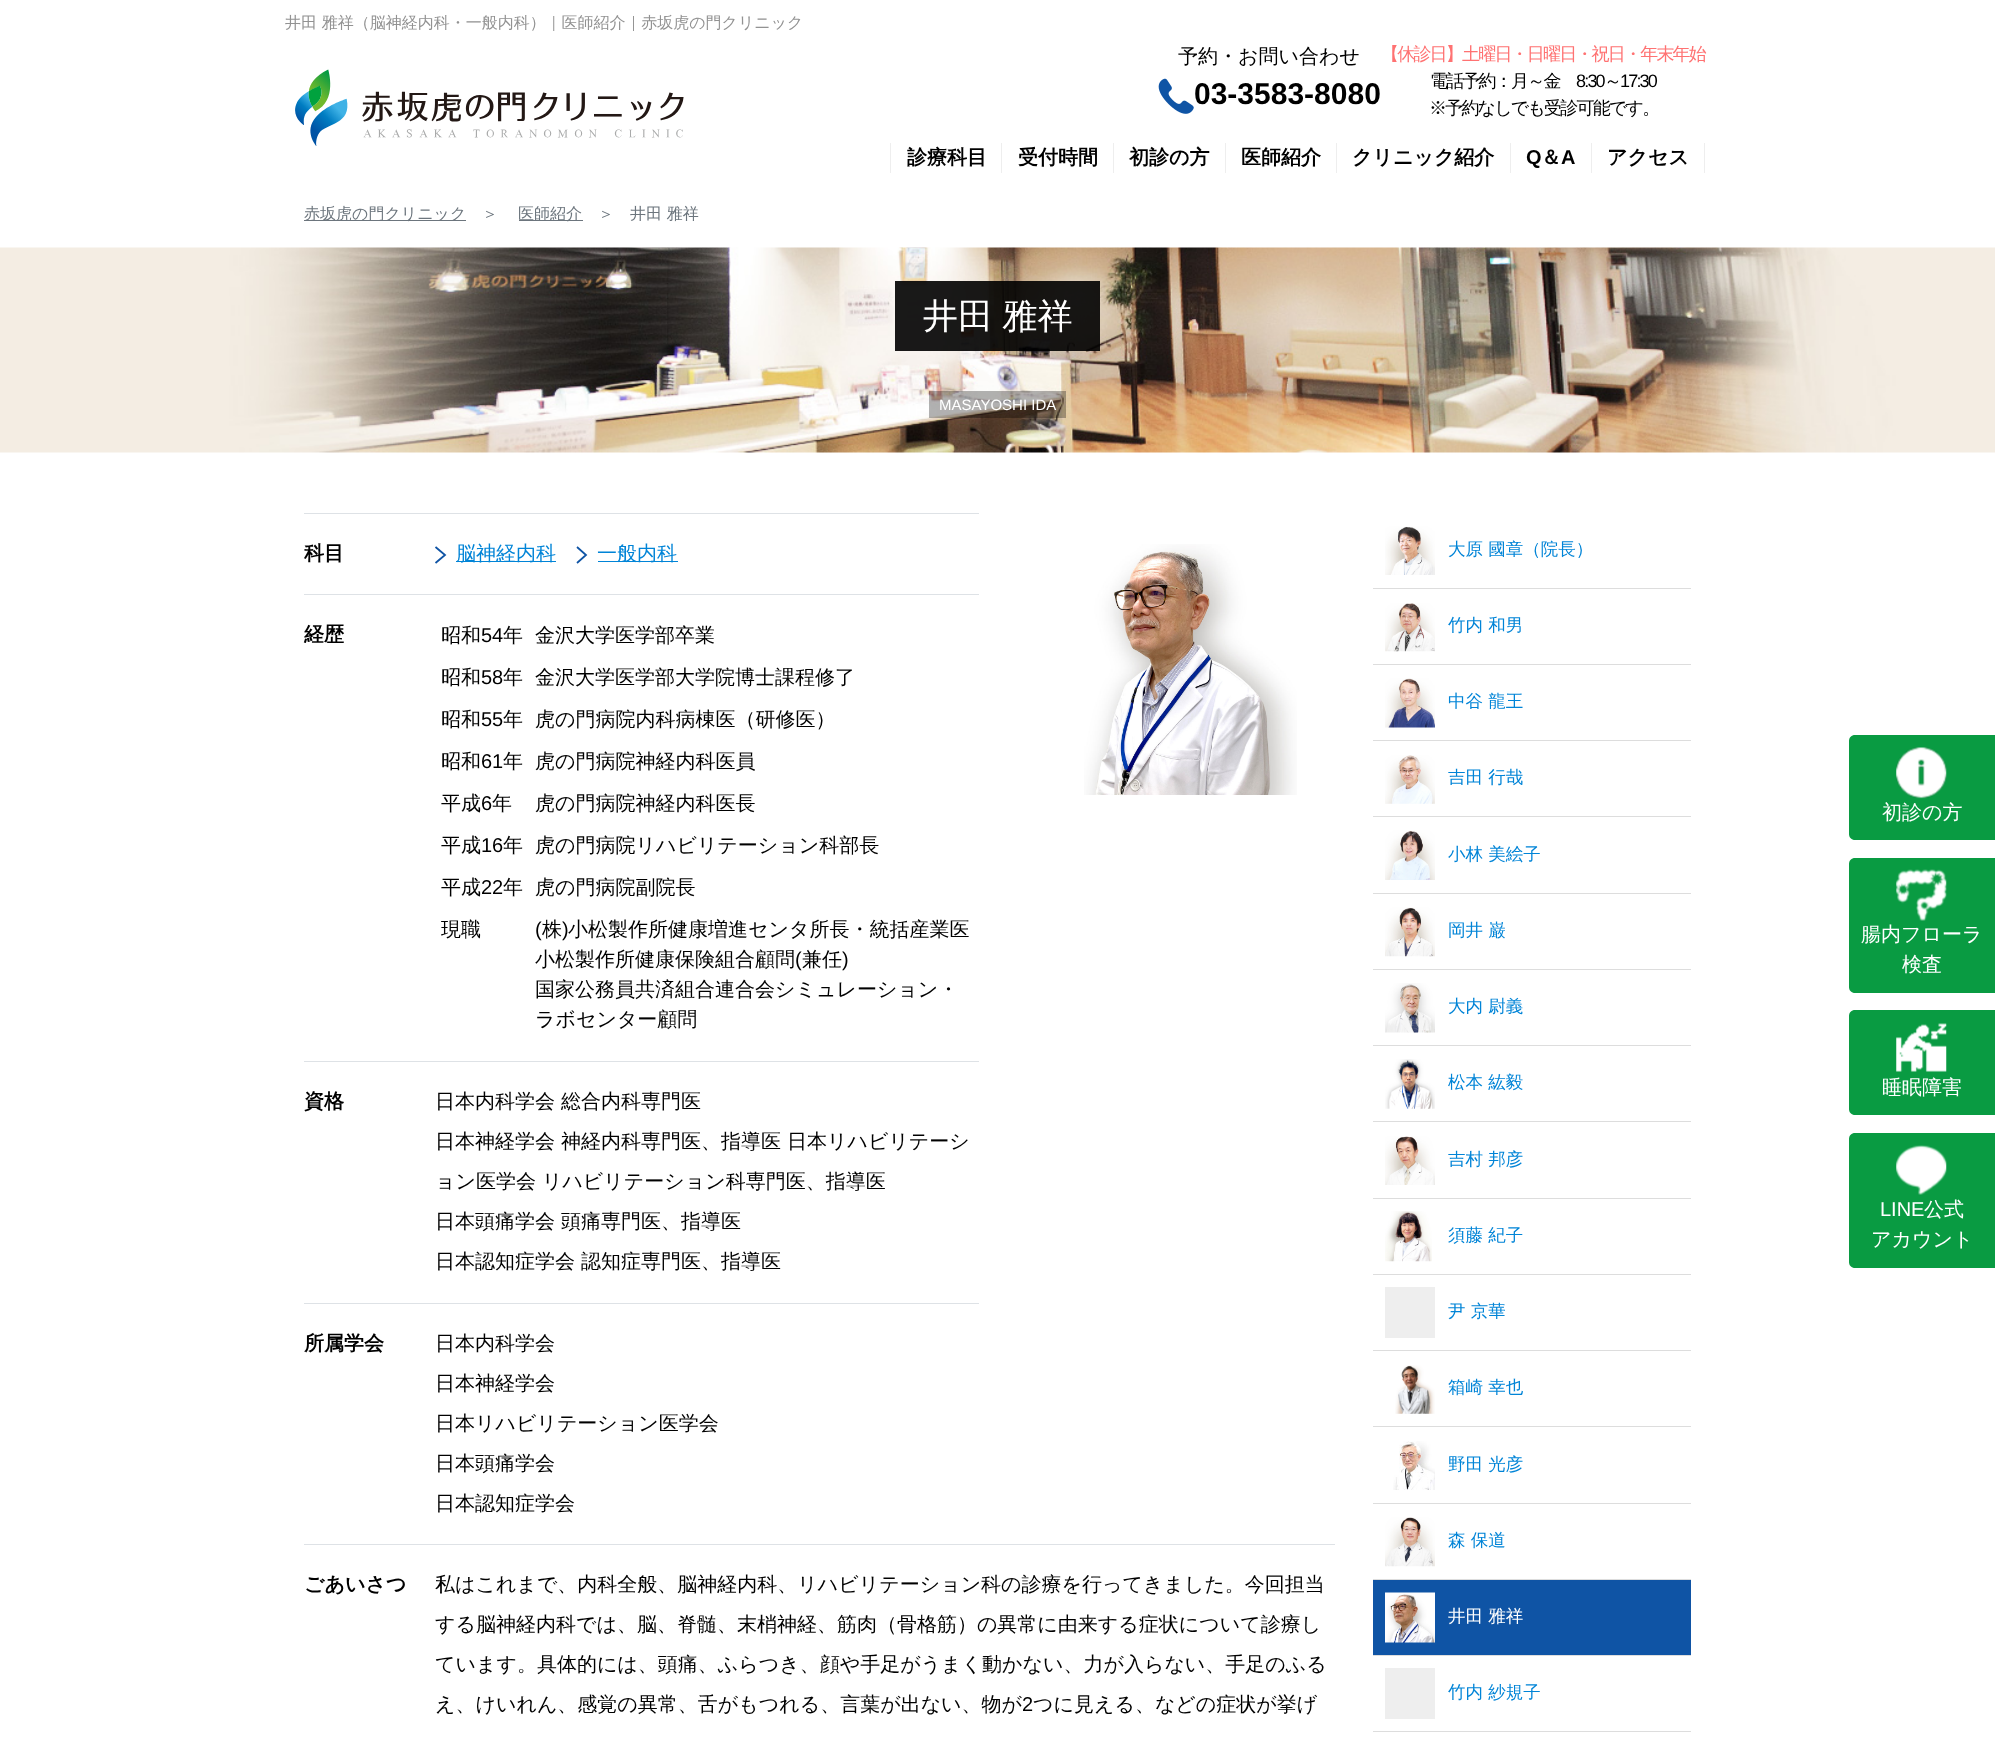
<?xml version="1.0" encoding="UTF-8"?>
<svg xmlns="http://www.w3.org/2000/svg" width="1995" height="1743">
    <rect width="100%" height="100%" fill="#FFFFFF"/>
    <text x="285" y="28" font-family="WenQuanYi Zen Hei" font-size="16" font-weight="500" fill="#929292">井田 雅祥（脳神経内科・一般内科）｜医師紹介｜赤坂虎の門クリニック</text>
    <rect x="552" y="31" width="82" height="1" fill="#FFFFFF"/>
    <image x="295" y="69" width="389" height="77" href="img_01.png"/>
    <text x="1178" y="63" font-family="WenQuanYi Zen Hei" font-size="20" font-weight="500" fill="#000000">予約・お問い合わせ</text>
    <image x="1158" y="78" width="36" height="36" href="img_02.png"/>
    <text x="1194" y="104" font-family="Liberation Sans" font-size="30" font-weight="700" fill="#000000">03-3583-8080</text>
    <text x="1381" y="60" font-family="WenQuanYi Zen Hei" font-size="18" font-weight="500" letter-spacing="-1.8" fill="#FF7272">【休診日】土曜日・日曜日・祝日・年末年始</text>
    <text x="1430" y="87" font-family="WenQuanYi Zen Hei" font-size="18" font-weight="500" letter-spacing="-1.8" fill="#000000">電話予約：月～金</text>
    <text x="1576" y="87" font-family="Liberation Sans" font-size="18" letter-spacing="-1.8" fill="#000000">8:30</text>
    <text x="1604" y="87" font-family="WenQuanYi Zen Hei" font-size="18" font-weight="500" letter-spacing="-1.8" fill="#000000">～</text>
    <text x="1620" y="87" font-family="Liberation Sans" font-size="18" letter-spacing="-1.8" fill="#000000">17:30</text>
    <text x="1429" y="114" font-family="WenQuanYi Zen Hei" font-size="18" font-weight="500" letter-spacing="-1.8" fill="#000000">※予約なしでも受診可能です。</text>
    <rect x="890" y="143" width="1" height="30" fill="#EEEEEE"/>
    <text x="907" y="164" font-family="WenQuanYi Zen Hei" font-size="20" font-weight="700" fill="#000000">診療科目</text>
    <rect x="1001" y="143" width="1" height="30" fill="#EEEEEE"/>
    <text x="1018" y="164" font-family="WenQuanYi Zen Hei" font-size="20" font-weight="700" fill="#000000">受付時間</text>
    <rect x="1113" y="143" width="1" height="30" fill="#EEEEEE"/>
    <text x="1129" y="164" font-family="WenQuanYi Zen Hei" font-size="20" font-weight="700" fill="#000000">初診の方</text>
    <rect x="1225" y="143" width="1" height="30" fill="#EEEEEE"/>
    <text x="1241" y="164" font-family="WenQuanYi Zen Hei" font-size="20" font-weight="700" fill="#000000">医師紹介</text>
    <rect x="1336" y="143" width="1" height="30" fill="#EEEEEE"/>
    <text x="1352" y="164" font-family="WenQuanYi Zen Hei" font-size="20" font-weight="700" fill="#000000">クリニック紹介</text>
    <rect x="1510" y="143" width="1" height="30" fill="#EEEEEE"/>
    <text x="1526" y="164" font-family="Liberation Sans" font-size="20" font-weight="700" fill="#000000">Q</text>
    <text x="1541" y="164" font-family="WenQuanYi Zen Hei" font-size="20" font-weight="700" fill="#000000">＆</text>
    <text x="1561" y="164" font-family="Liberation Sans" font-size="20" font-weight="700" fill="#000000">A</text>
    <rect x="1704" y="143" width="1" height="30" fill="#EEEEEE"/>
    <rect x="1591" y="143" width="1" height="30" fill="#EEEEEE"/>
    <text x="1607" y="164" font-family="WenQuanYi Zen Hei" font-size="20" font-weight="700" fill="#000000">アクセス</text>
    <rect x="304" y="220" width="162" height="1" fill="#6C757D"/>
    <text x="304" y="219" font-family="WenQuanYi Zen Hei" font-size="16" font-weight="500" fill="#6C757D">赤坂虎の門クリニック</text>
    <text x="482" y="219" font-family="WenQuanYi Zen Hei" font-size="16" font-weight="500" fill="#6C757D">＞</text>
    <rect x="519" y="220" width="64" height="1" fill="#6C757D"/>
    <text x="518" y="219" font-family="WenQuanYi Zen Hei" font-size="16" font-weight="500" fill="#6C757D">医師紹介</text>
    <text x="598" y="219" font-family="WenQuanYi Zen Hei" font-size="16" font-weight="500" fill="#6C757D">＞</text>
    <text x="630" y="219" font-family="WenQuanYi Zen Hei" font-size="16" font-weight="500" fill="#6C757D">井田 雅祥</text>
    <image x="0" y="247" width="1995" height="206" href="img_03.png"/>
    <rect x="895" y="281" width="205" height="70" fill="#000000" fill-opacity="0.9"/>
    <text x="923" y="328" word-spacing="-1" font-family="WenQuanYi Zen Hei" font-size="35" font-weight="500" fill="#FFFFFF">井田 雅祥</text>
    <rect x="929" y="391" width="137" height="27" fill="#000000" fill-opacity="0.3"/>
    <text x="939" y="410" font-family="Liberation Sans" font-size="15" fill="#FFFFFF">MASAYOSHI IDA</text>
    <path d="M 1855 735 H 1995 V 840 H 1855 C 1851.5 840 1849 837.5 1849 834 V 741 C 1849 737.5 1851.5 735 1855 735 Z" fill="#099B42"/>
    <image x="1896" y="747" width="51" height="52" href="img_04.png"/>
    <text x="1882" y="819" font-family="WenQuanYi Zen Hei" font-size="20" font-weight="500" fill="#FFFFFF">初診の方</text>
    <path d="M 1855 858 H 1995 V 993 H 1855 C 1851.5 993 1849 990.5 1849 987 V 864 C 1849 860.5 1851.5 858 1855 858 Z" fill="#099B42"/>
    <image x="1896" y="869" width="51" height="52" href="img_05.png"/>
    <text x="1861" y="941" font-family="WenQuanYi Zen Hei" font-size="20" font-weight="500" fill="#FFFFFF">腸内フローラ</text>
    <text x="1902" y="971" font-family="WenQuanYi Zen Hei" font-size="20" font-weight="500" fill="#FFFFFF">検査</text>
    <path d="M 1855 1010 H 1995 V 1115 H 1855 C 1851.5 1115 1849 1112.5 1849 1109 V 1016 C 1849 1012.5 1851.5 1010 1855 1010 Z" fill="#099B42"/>
    <image x="1896" y="1023" width="51" height="49" href="img_06.png"/>
    <text x="1882" y="1094" font-family="WenQuanYi Zen Hei" font-size="20" font-weight="500" fill="#FFFFFF">睡眠障害</text>
    <path d="M 1855 1133 H 1995 V 1268 H 1855 C 1851.5 1268 1849 1265.5 1849 1262 V 1139 C 1849 1135.5 1851.5 1133 1855 1133 Z" fill="#099B42"/>
    <image x="1896" y="1145" width="51" height="50" href="img_07.png"/>
    <text x="1880" y="1216" font-family="Liberation Sans" font-size="20" fill="#FFFFFF">LINE</text>
    <text x="1924" y="1216" font-family="WenQuanYi Zen Hei" font-size="20" font-weight="500" fill="#FFFFFF">公式</text>
    <text x="1871" y="1246" font-family="WenQuanYi Zen Hei" font-size="20" font-weight="500" fill="#FFFFFF">アカウント</text>
    <rect x="304" y="513" width="675" height="1" fill="#DEE2E6"/>
    <text x="304" y="560" font-family="WenQuanYi Zen Hei" font-size="20" font-weight="700" fill="#000000">科目</text>
    <path d="M 435.5 547 L 445 555 L 435.5 563" fill="none" stroke="#0F54A5" stroke-width="1.8"/>
    <rect x="456" y="561" width="100" height="1" fill="#0084D7"/>
    <text x="456" y="560" font-family="WenQuanYi Zen Hei" font-size="20" font-weight="500" fill="#0084D7">脳神経内科</text>
    <path d="M 577 547 L 586 555 L 577 563" fill="none" stroke="#0F54A5" stroke-width="1.8"/>
    <rect x="598" y="561" width="80" height="1" fill="#0084D7"/>
    <text x="597" y="560" font-family="WenQuanYi Zen Hei" font-size="20" font-weight="500" fill="#0084D7">一般内科</text>
    <rect x="304" y="594" width="675" height="1" fill="#DEE2E6"/>
    <text x="304" y="641" font-family="WenQuanYi Zen Hei" font-size="20" font-weight="700" fill="#000000">経歴</text>
    <text x="441" y="642" font-family="WenQuanYi Zen Hei" font-size="20" font-weight="500" fill="#000000">昭和</text>
    <text x="481" y="642" font-family="Liberation Sans" font-size="20" fill="#000000">54</text>
    <text x="503" y="642" font-family="WenQuanYi Zen Hei" font-size="20" font-weight="500" fill="#000000">年</text>
    <text x="535" y="642" font-family="WenQuanYi Zen Hei" font-size="20" font-weight="500" fill="#000000">金沢大学医学部卒業</text>
    <text x="441" y="684" font-family="WenQuanYi Zen Hei" font-size="20" font-weight="500" fill="#000000">昭和</text>
    <text x="481" y="684" font-family="Liberation Sans" font-size="20" fill="#000000">58</text>
    <text x="503" y="684" font-family="WenQuanYi Zen Hei" font-size="20" font-weight="500" fill="#000000">年</text>
    <text x="535" y="684" font-family="WenQuanYi Zen Hei" font-size="20" font-weight="500" fill="#000000">金沢大学医学部大学院博士課程修了</text>
    <text x="441" y="726" font-family="WenQuanYi Zen Hei" font-size="20" font-weight="500" fill="#000000">昭和</text>
    <text x="481" y="726" font-family="Liberation Sans" font-size="20" fill="#000000">55</text>
    <text x="503" y="726" font-family="WenQuanYi Zen Hei" font-size="20" font-weight="500" fill="#000000">年</text>
    <text x="535" y="726" font-family="WenQuanYi Zen Hei" font-size="20" font-weight="500" fill="#000000">虎の門病院内科病棟医（研修医）</text>
    <text x="441" y="768" font-family="WenQuanYi Zen Hei" font-size="20" font-weight="500" fill="#000000">昭和</text>
    <text x="481" y="768" font-family="Liberation Sans" font-size="20" fill="#000000">61</text>
    <text x="503" y="768" font-family="WenQuanYi Zen Hei" font-size="20" font-weight="500" fill="#000000">年</text>
    <text x="535" y="768" font-family="WenQuanYi Zen Hei" font-size="20" font-weight="500" fill="#000000">虎の門病院神経内科医員</text>
    <text x="441" y="810" font-family="WenQuanYi Zen Hei" font-size="20" font-weight="500" fill="#000000">平成</text>
    <text x="481" y="810" font-family="Liberation Sans" font-size="20" fill="#000000">6</text>
    <text x="492" y="810" font-family="WenQuanYi Zen Hei" font-size="20" font-weight="500" fill="#000000">年</text>
    <text x="535" y="810" font-family="WenQuanYi Zen Hei" font-size="20" font-weight="500" fill="#000000">虎の門病院神経内科医長</text>
    <text x="441" y="852" font-family="WenQuanYi Zen Hei" font-size="20" font-weight="500" fill="#000000">平成</text>
    <text x="481" y="852" font-family="Liberation Sans" font-size="20" fill="#000000">16</text>
    <text x="503" y="852" font-family="WenQuanYi Zen Hei" font-size="20" font-weight="500" fill="#000000">年</text>
    <text x="535" y="852" font-family="WenQuanYi Zen Hei" font-size="20" font-weight="500" fill="#000000">虎の門病院リハビリテーション科部長</text>
    <text x="441" y="894" font-family="WenQuanYi Zen Hei" font-size="20" font-weight="500" fill="#000000">平成</text>
    <text x="481" y="894" font-family="Liberation Sans" font-size="20" fill="#000000">22</text>
    <text x="503" y="894" font-family="WenQuanYi Zen Hei" font-size="20" font-weight="500" fill="#000000">年</text>
    <text x="535" y="894" font-family="WenQuanYi Zen Hei" font-size="20" font-weight="500" fill="#000000">虎の門病院副院長</text>
    <text x="441" y="936" font-family="WenQuanYi Zen Hei" font-size="20" font-weight="500" fill="#000000">現職</text>
    <text x="535" y="936" font-family="Liberation Sans" font-size="20" fill="#000000">(</text>
    <text x="542" y="936" font-family="WenQuanYi Zen Hei" font-size="20" font-weight="500" fill="#000000">株</text>
    <text x="562" y="936" font-family="Liberation Sans" font-size="20" fill="#000000">)</text>
    <text x="568" y="936" font-family="WenQuanYi Zen Hei" font-size="20" font-weight="500" fill="#000000">小松製作所健康増進センタ所長・統括産業医</text>
    <text x="535" y="966" font-family="WenQuanYi Zen Hei" font-size="20" font-weight="500" fill="#000000">小松製作所健康保険組合顧問</text>
    <text x="795" y="966" font-family="Liberation Sans" font-size="20" fill="#000000">(</text>
    <text x="802" y="966" font-family="WenQuanYi Zen Hei" font-size="20" font-weight="500" fill="#000000">兼任</text>
    <text x="842" y="966" font-family="Liberation Sans" font-size="20" fill="#000000">)</text>
    <text font-family="WenQuanYi Zen Hei" font-size="20" font-weight="500" fill="#000000">
        <tspan x="535" y="996">国家公務員共済組合連合会シミュレーション・</tspan>
        <tspan x="535" y="1026">ラボセンター顧問</tspan>
    </text>
    <rect x="304" y="1061" width="675" height="1" fill="#DEE2E6"/>
    <text x="304" y="1108" font-family="WenQuanYi Zen Hei" font-size="20" font-weight="700" fill="#000000">資格</text>
    <text x="435" y="1108" font-family="WenQuanYi Zen Hei" font-size="20" font-weight="500" fill="#000000">日本内科学会 総合内科専門医</text>
    <text x="435" y="1148" font-family="WenQuanYi Zen Hei" font-size="20" font-weight="500" fill="#000000">日本神経学会 神経内科専門医、指導医 日本リハビリテーシ</text>
    <text x="435" y="1188" font-family="WenQuanYi Zen Hei" font-size="20" font-weight="500" fill="#000000">ョン医学会 リハビリテーション科専門医、指導医</text>
    <text x="435" y="1228" font-family="WenQuanYi Zen Hei" font-size="20" font-weight="500" fill="#000000">日本頭痛学会 頭痛専門医、指導医</text>
    <text x="435" y="1268" font-family="WenQuanYi Zen Hei" font-size="20" font-weight="500" fill="#000000">日本認知症学会 認知症専門医、指導医</text>
    <rect x="304" y="1303" width="675" height="1" fill="#DEE2E6"/>
    <text x="304" y="1350" font-family="WenQuanYi Zen Hei" font-size="20" font-weight="700" fill="#000000">所属学会</text>
    <text x="435" y="1350" font-family="WenQuanYi Zen Hei" font-size="20" font-weight="500" fill="#000000">日本内科学会</text>
    <text x="435" y="1390" font-family="WenQuanYi Zen Hei" font-size="20" font-weight="500" fill="#000000">日本神経学会</text>
    <text x="435" y="1430" font-family="WenQuanYi Zen Hei" font-size="20" font-weight="500" fill="#000000">日本リハビリテーション医学会</text>
    <text x="435" y="1470" font-family="WenQuanYi Zen Hei" font-size="20" font-weight="500" fill="#000000">日本頭痛学会</text>
    <text x="435" y="1510" font-family="WenQuanYi Zen Hei" font-size="20" font-weight="500" fill="#000000">日本認知症学会</text>
    <image x="1084" y="544" width="213" height="251" href="img_08.png"/>
    <rect x="304" y="1544" width="1031" height="1" fill="#DEE2E6"/>
    <text x="304" y="1591" font-family="WenQuanYi Zen Hei" font-size="20" font-weight="700" fill="#000000">ごあいさつ</text>
    <text x="435" y="1591" font-family="WenQuanYi Zen Hei" font-size="20" font-weight="500" fill="#000000">私はこれまで、内科全般、脳神経内科、リハビリテーション科の診療を行ってきました。今回担当</text>
    <text x="435" y="1631" font-family="WenQuanYi Zen Hei" font-size="20" font-weight="500" fill="#000000">する脳神経内科では、脳、脊髄、末梢神経、筋肉（骨格筋）の異常に由来する症状について診療し</text>
    <text x="435" y="1671" font-family="WenQuanYi Zen Hei" font-size="20" font-weight="500" fill="#000000">ています。具体的には、頭痛、ふらつき、顔や手足がうまく動かない、力が入らない、手足のふる</text>
    <text x="435" y="1711" font-family="WenQuanYi Zen Hei" font-size="20" font-weight="500" fill="#000000">え、けいれん、感覚の異常、舌がもつれる、言葉が出ない、物が</text>
    <text x="1022" y="1711" font-family="Liberation Sans" font-size="20" fill="#000000">2</text>
    <text x="1033" y="1711" font-family="WenQuanYi Zen Hei" font-size="20" font-weight="500" fill="#000000">つに見える、などの症状が挙げ</text>
    <rect x="1373" y="588" width="318" height="1" fill="#DDDDDD"/>
    <image x="1385" y="526" width="50" height="49" href="img_09.png"/>
    <text x="1448" y="555" font-family="WenQuanYi Zen Hei" font-size="17.5" font-weight="500" fill="#0084D7">大原 國章（院長）</text>
    <rect x="1373" y="664" width="318" height="1" fill="#DDDDDD"/>
    <image x="1385" y="603" width="50" height="49" href="img_10.png"/>
    <text x="1448" y="631" font-family="WenQuanYi Zen Hei" font-size="17.5" font-weight="500" fill="#0084D7">竹内 和男</text>
    <rect x="1373" y="740" width="318" height="1" fill="#DDDDDD"/>
    <image x="1385" y="678" width="50" height="50" href="img_11.png"/>
    <text x="1448" y="707" font-family="WenQuanYi Zen Hei" font-size="17.5" font-weight="500" fill="#0084D7">中谷 龍王</text>
    <rect x="1373" y="816" width="318" height="1" fill="#DDDDDD"/>
    <image x="1385" y="755" width="50" height="49" href="img_12.png"/>
    <text x="1448" y="783" font-family="WenQuanYi Zen Hei" font-size="17.5" font-weight="500" fill="#0084D7">吉田 行哉</text>
    <rect x="1373" y="893" width="318" height="1" fill="#DDDDDD"/>
    <image x="1385" y="830" width="50" height="50" href="img_13.png"/>
    <text x="1448" y="860" font-family="WenQuanYi Zen Hei" font-size="17.5" font-weight="500" fill="#0084D7">小林 美絵子</text>
    <rect x="1373" y="969" width="318" height="1" fill="#DDDDDD"/>
    <image x="1385" y="907" width="50" height="50" href="img_14.png"/>
    <text x="1448" y="936" font-family="WenQuanYi Zen Hei" font-size="17.5" font-weight="500" fill="#0084D7">岡井 巌</text>
    <rect x="1373" y="1045" width="318" height="1" fill="#DDDDDD"/>
    <image x="1385" y="983" width="50" height="50" href="img_15.png"/>
    <text x="1448" y="1012" font-family="WenQuanYi Zen Hei" font-size="17.5" font-weight="500" fill="#0084D7">大内 尉義</text>
    <rect x="1373" y="1121" width="318" height="1" fill="#DDDDDD"/>
    <image x="1385" y="1059" width="50" height="50" href="img_16.png"/>
    <text x="1448" y="1088" font-family="WenQuanYi Zen Hei" font-size="17.5" font-weight="500" fill="#0084D7">松本 紘毅</text>
    <rect x="1373" y="1198" width="318" height="1" fill="#DDDDDD"/>
    <image x="1385" y="1136" width="50" height="49" href="img_17.png"/>
    <text x="1448" y="1165" font-family="WenQuanYi Zen Hei" font-size="17.5" font-weight="500" fill="#0084D7">吉村 邦彦</text>
    <rect x="1373" y="1274" width="318" height="1" fill="#DDDDDD"/>
    <image x="1385" y="1211" width="47" height="51" href="img_18.png"/>
    <text x="1448" y="1241" font-family="WenQuanYi Zen Hei" font-size="17.5" font-weight="500" fill="#0084D7">須藤 紀子</text>
    <rect x="1373" y="1350" width="318" height="1" fill="#DDDDDD"/>
    <rect x="1385" y="1287" width="50" height="51" fill="#EEEEEE"/>
    <text x="1448" y="1317" font-family="WenQuanYi Zen Hei" font-size="17.5" font-weight="500" fill="#0084D7">尹 京華</text>
    <rect x="1373" y="1426" width="318" height="1" fill="#DDDDDD"/>
    <image x="1395" y="1365" width="40" height="49" href="img_19.png"/>
    <text x="1448" y="1393" font-family="WenQuanYi Zen Hei" font-size="17.5" font-weight="500" fill="#0084D7">箱崎 幸也</text>
    <rect x="1373" y="1503" width="318" height="1" fill="#DDDDDD"/>
    <image x="1393" y="1441" width="42" height="49" href="img_20.png"/>
    <text x="1448" y="1470" font-family="WenQuanYi Zen Hei" font-size="17.5" font-weight="500" fill="#0084D7">野田 光彦</text>
    <rect x="1373" y="1579" width="318" height="1" fill="#DDDDDD"/>
    <image x="1385" y="1517" width="50" height="50" href="img_21.png"/>
    <text x="1448" y="1546" font-family="WenQuanYi Zen Hei" font-size="17.5" font-weight="500" fill="#0084D7">森 保道</text>
    <rect x="1373" y="1580" width="318" height="75" fill="#0F54A5"/>
    <rect x="1373" y="1655" width="318" height="1" fill="#DDDDDD"/>
    <image x="1385" y="1592" width="50" height="51" href="img_22.png"/>
    <text x="1448" y="1622" font-family="WenQuanYi Zen Hei" font-size="17.5" font-weight="500" fill="#FFFFFF">井田 雅祥</text>
    <rect x="1373" y="1731" width="318" height="1" fill="#DDDDDD"/>
    <rect x="1385" y="1668" width="50" height="51" fill="#EEEEEE"/>
    <text x="1448" y="1698" font-family="WenQuanYi Zen Hei" font-size="17.5" font-weight="500" fill="#0084D7">竹内 紗規子</text>
</svg>
